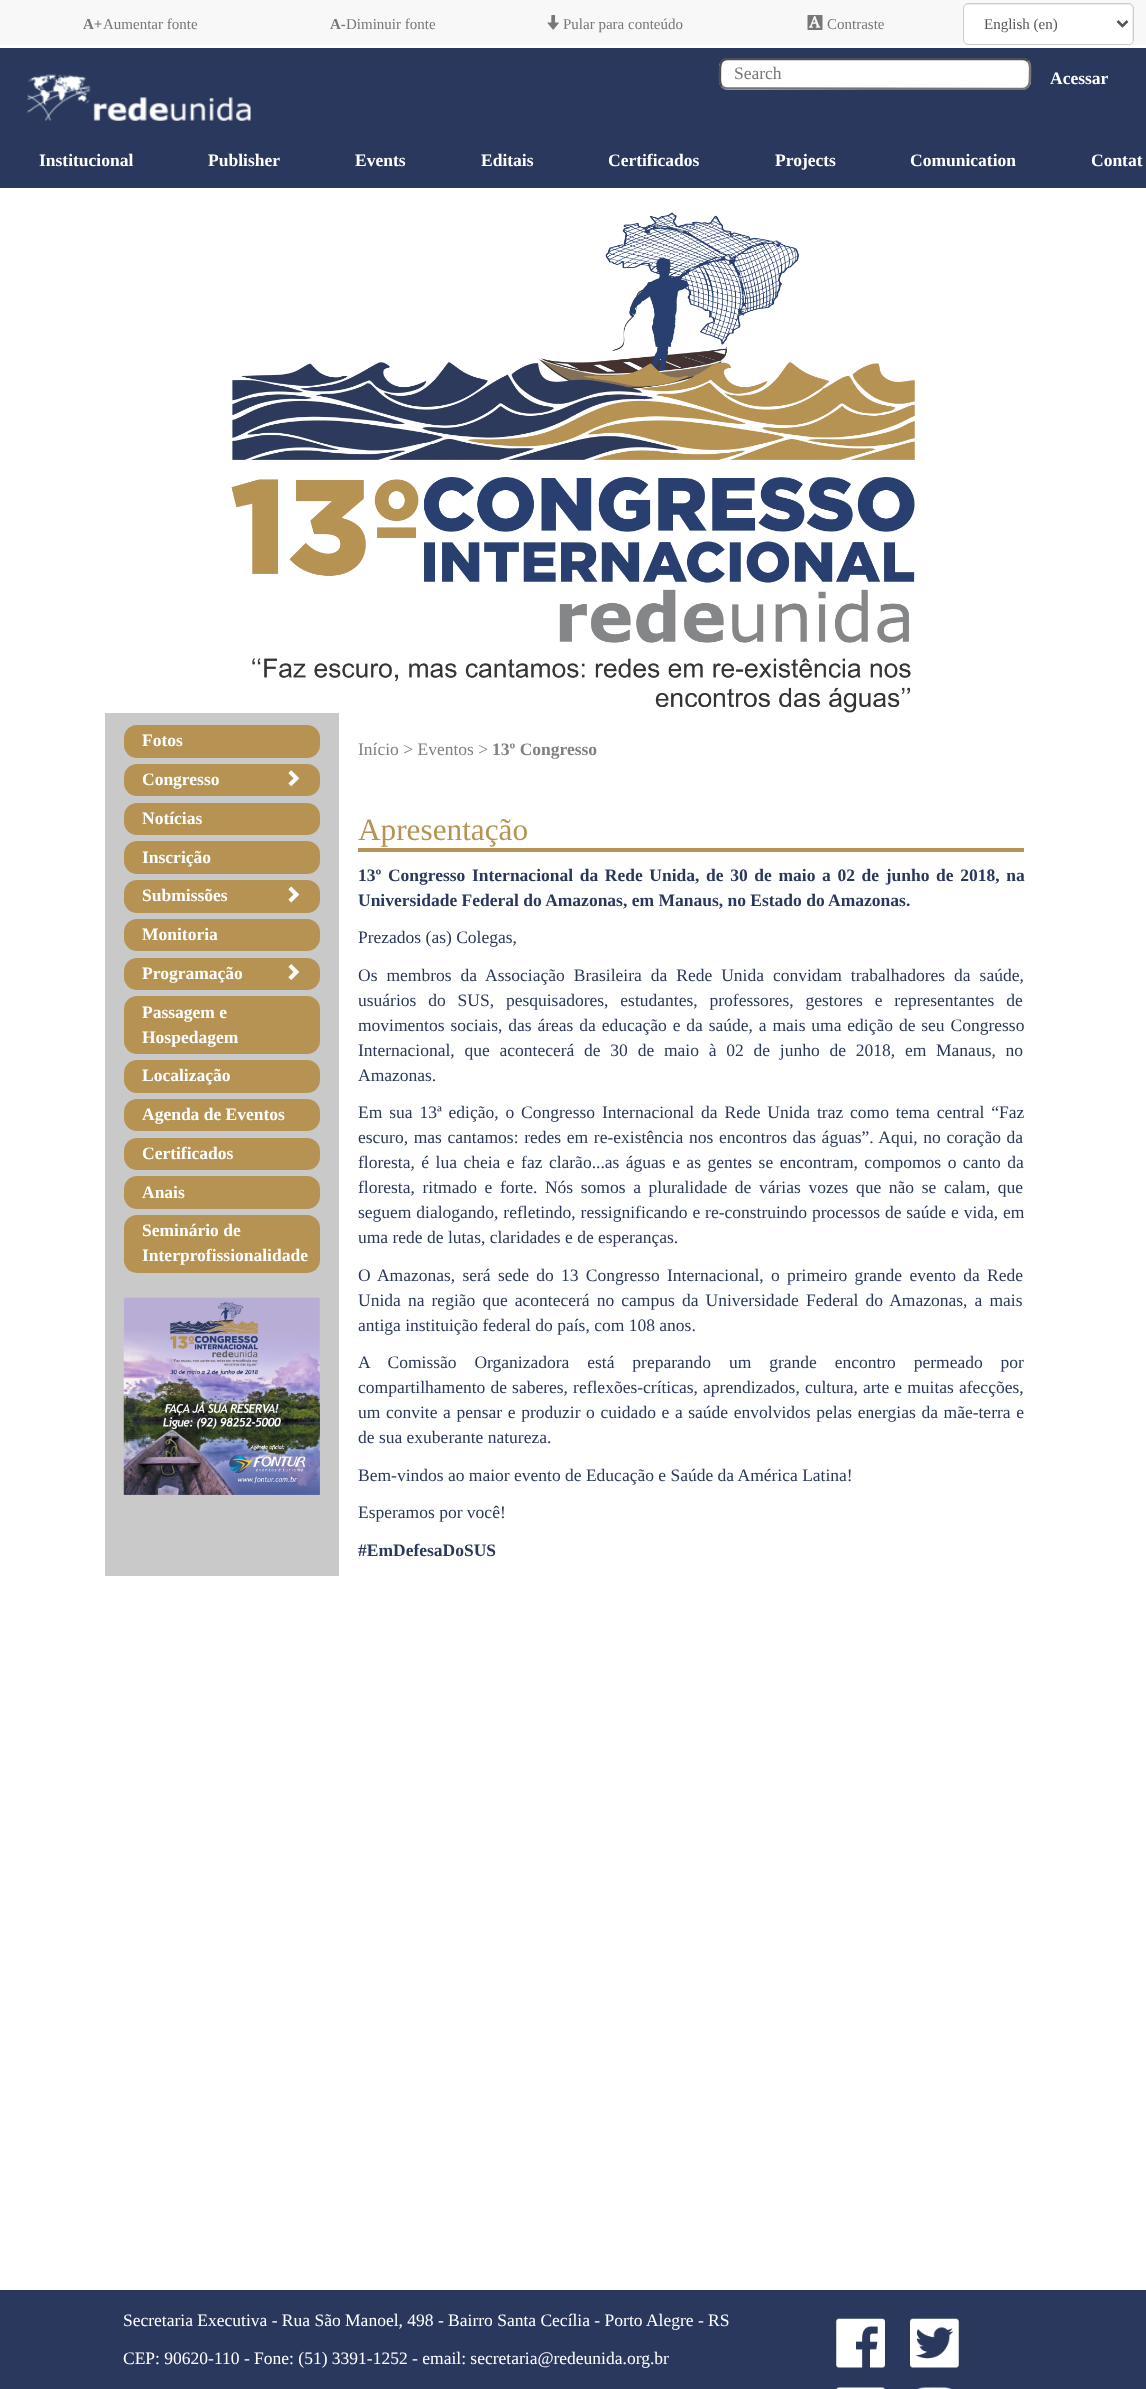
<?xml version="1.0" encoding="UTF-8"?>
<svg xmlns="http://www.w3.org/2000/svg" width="1146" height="2389">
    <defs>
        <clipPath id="clip1"><rect x="700" y="58" width="350" height="32"/></clipPath>
    </defs>
    <rect width="100%" height="100%" fill="#FFFFFF"/>
    <rect x="0" y="0" width="1146" height="45" fill="#F8F8F8"/>
    <text x="83" y="29" font-family="Liberation Serif" font-size="15" font-weight="700" fill="#777777">A+</text>
    <text x="103" y="29" font-family="Liberation Serif" font-size="15" fill="#777777">Aumentar fonte</text>
    <text x="330" y="29" font-family="Liberation Serif" font-size="15" font-weight="700" fill="#777777">A-</text>
    <text x="346" y="29" font-family="Liberation Serif" font-size="15" fill="#777777">Diminuir fonte</text>
    <image x="547" y="15" width="12" height="15" href="img_01.png"/>
    <text x="563" y="29" font-family="Liberation Serif" font-size="15" fill="#777777">Pular para conteúdo</text>
    <image x="807" y="15" width="16" height="15" href="img_02.png"/>
    <text x="827" y="29" font-family="Liberation Serif" font-size="15" fill="#777777">Contraste</text>
    <rect x="963" y="3" width="171" height="42" rx="5" fill="#FFFFFF"/>
    <path d="M 968 5 H 1129 C 1134 5 1132 18 1132 20 V 43 C 1132 42 1133 41 1133 40 V 8 C 1133 6 1131 4 1129 4 H 968 C 966 4 964 6 964 8 V 9 C 964 7 965 5 968 5 Z" fill="#ECECEC"/>
    <rect x="963.5" y="3.5" width="170" height="41" rx="4.5" fill="none" stroke="#CCCCCC"/>
    <path d="M 1117.5 21 L 1122.5 26 L 1127.5 21" fill="none" stroke="#555555" stroke-width="2.5"/>
    <text x="984" y="29" font-family="Liberation Serif" font-size="15" fill="#555555">English (en)</text>
    <rect x="0" y="48" width="1146" height="140" fill="#2B385D"/>
    <image x="27" y="74" width="224" height="47" href="img_03.png"/>
    <rect x="719" y="58" width="312" height="32" rx="9" fill="#FFFFFF"/>
    <g clip-path="url(#clip1)">
        <path d="M 1028 61 C 1031 64 1030 69.5 1030 74 C 1030 79.5 1031 88.5 1022.5 89 L 727 88.5 C 725 88.5 723.5 88 722 86.5" fill="none" stroke="#767676" stroke-width="2.5"/>
        <path d="M 722 86.5 C 719 83.5 720 78 720 74 C 720 68 719 59 727.5 59 H 1023 C 1025 59 1026.5 59.5 1028 61" fill="none" stroke="#4F4F4F" stroke-width="2.5"/>
    </g>
    <text x="734" y="79" font-family="Liberation Serif" font-size="17.5" fill="#777777">Search</text>
    <text x="1050" y="84" font-family="Liberation Serif" font-size="17.5" font-weight="700" fill="#FFFFFF">Acessar</text>
    <text x="39" y="166" font-family="Liberation Serif" font-size="17.5" font-weight="700" fill="#FFFFFF">Institucional</text>
    <text x="208" y="166" font-family="Liberation Serif" font-size="17.5" font-weight="700" fill="#FFFFFF">Publisher</text>
    <text x="355" y="166" font-family="Liberation Serif" font-size="17.5" font-weight="700" fill="#FFFFFF">Events</text>
    <text x="481" y="166" font-family="Liberation Serif" font-size="17.5" font-weight="700" fill="#FFFFFF">Editais</text>
    <text x="608" y="166" font-family="Liberation Serif" font-size="17.5" font-weight="700" fill="#FFFFFF">Certificados</text>
    <text x="775" y="166" font-family="Liberation Serif" font-size="17.5" font-weight="700" fill="#FFFFFF">Projects</text>
    <text x="910" y="166" font-family="Liberation Serif" font-size="17.5" font-weight="700" fill="#FFFFFF">Comunication</text>
    <text x="1091" y="166" font-family="Liberation Serif" font-size="17.5" font-weight="700" fill="#FFFFFF">Contat</text>
    <image x="231" y="212" width="684" height="501" href="img_04.png"/>
    <rect x="105" y="713" width="234" height="863" fill="#C9C9C9"/>
    <rect x="124" y="725" width="196" height="33" rx="13" fill="#B69353"/>
    <text x="142" y="746" font-family="Liberation Serif" font-size="17.5" font-weight="700" fill="#FFFFFF">Fotos</text>
    <rect x="124" y="764" width="196" height="32" rx="13" fill="#B69353"/>
    <text x="142" y="785" font-family="Liberation Serif" font-size="17.5" font-weight="700" fill="#FFFFFF">Congresso</text>
    <image x="288" y="770" width="12" height="17" href="img_05.png"/>
    <rect x="124" y="803" width="196" height="32" rx="13" fill="#B69353"/>
    <text x="142" y="824" font-family="Liberation Serif" font-size="17.5" font-weight="700" fill="#FFFFFF">Notícias</text>
    <rect x="124" y="841" width="196" height="33" rx="13" fill="#B69353"/>
    <text x="142" y="863" font-family="Liberation Serif" font-size="17.5" font-weight="700" fill="#FFFFFF">Inscrição</text>
    <rect x="124" y="880" width="196" height="33" rx="13" fill="#B69353"/>
    <text x="142" y="901" font-family="Liberation Serif" font-size="17.5" font-weight="700" fill="#FFFFFF">Submissões</text>
    <image x="288" y="886" width="12" height="17" href="img_06.png"/>
    <rect x="124" y="919" width="196" height="32" rx="13" fill="#B69353"/>
    <text x="142" y="940" font-family="Liberation Serif" font-size="17.5" font-weight="700" fill="#FFFFFF">Monitoria</text>
    <rect x="124" y="958" width="196" height="32" rx="13" fill="#B69353"/>
    <text x="142" y="979" font-family="Liberation Serif" font-size="17.5" font-weight="700" fill="#FFFFFF">Programação</text>
    <image x="288" y="964" width="12" height="16" href="img_07.png"/>
    <rect x="124" y="996" width="196" height="58" rx="13" fill="#B69353"/>
    <text font-family="Liberation Serif" font-size="17.5" font-weight="700" fill="#FFFFFF">
        <tspan x="142" y="1018">Passagem e</tspan>
        <tspan x="142" y="1043">Hospedagem</tspan>
    </text>
    <rect x="124" y="1060" width="196" height="33" rx="13" fill="#B69353"/>
    <text x="142" y="1081" font-family="Liberation Serif" font-size="17.5" font-weight="700" fill="#FFFFFF">Localização</text>
    <rect x="124" y="1099" width="196" height="32" rx="13" fill="#B69353"/>
    <text x="142" y="1120" font-family="Liberation Serif" font-size="17.5" font-weight="700" fill="#FFFFFF">Agenda de Eventos</text>
    <rect x="124" y="1138" width="196" height="32" rx="13" fill="#B69353"/>
    <text x="142" y="1159" font-family="Liberation Serif" font-size="17.5" font-weight="700" fill="#FFFFFF">Certificados</text>
    <rect x="124" y="1176" width="196" height="33" rx="13" fill="#B69353"/>
    <text x="142" y="1198" font-family="Liberation Serif" font-size="17.5" font-weight="700" fill="#FFFFFF">Anais</text>
    <rect x="124" y="1215" width="196" height="58" rx="13" fill="#B69353"/>
    <text font-family="Liberation Serif" font-size="17.5" font-weight="700" fill="#FFFFFF">
        <tspan x="142" y="1236">Seminário de</tspan>
        <tspan x="142" y="1261">Interprofissionalidade</tspan>
    </text>
    <image x="123" y="1297" width="197" height="198" href="img_08.png"/>
    <text x="358" y="755" font-family="Liberation Serif" font-size="17.5" fill="#808080">Início &gt; Eventos &gt;</text>
    <text x="492" y="755" font-family="Liberation Serif" font-size="17.5" font-weight="700" fill="#808080">13º Congresso</text>
    <rect x="358" y="848" width="666" height="4" fill="#B69353"/>
    <text x="358" y="840" font-family="Liberation Serif" font-size="31.25" fill="#B69353">Apresentação</text>
    <text font-family="Liberation Serif" font-size="17.5" font-weight="700" fill="#2B385D">
        <tspan x="358" y="881" word-spacing="2.25">13º Congresso Internacional da Rede Unida, de 30 de maio a 02 de junho de 2018, na</tspan>
        <tspan x="358" y="906">Universidade Federal do Amazonas, em Manaus, no Estado do Amazonas.</tspan>
    </text>
    <text x="358" y="943" font-family="Liberation Serif" font-size="17.5" fill="#2B385D">Prezados (as) Colegas,</text>
    <text font-family="Liberation Serif" font-size="17.5" fill="#2B385D">
        <tspan x="358" y="981" word-spacing="4.6">Os membros da Associação Brasileira da Rede Unida convidam trabalhadores da saúde,</tspan>
        <tspan x="358" y="1006" word-spacing="7.5">usuários do SUS, pesquisadores, estudantes, professores, gestores e representantes de</tspan>
        <tspan x="358" y="1031" word-spacing="1.5">movimentos sociais, das áreas da educação e da saúde, a mais uma edição de seu Congresso</tspan>
        <tspan x="358" y="1056" word-spacing="5.4">Internacional, que acontecerá de 30 de maio à 02 de junho de 2018, em Manaus, no</tspan>
        <tspan x="358" y="1081">Amazonas.</tspan>
    </text>
    <text font-family="Liberation Serif" font-size="17.5" fill="#2B385D">
        <tspan x="358" y="1118" word-spacing="2.5">Em sua 13ª edição, o Congresso Internacional da Rede Unida traz como tema central “Faz</tspan>
        <tspan x="358" y="1143" word-spacing="1.3">escuro, mas cantamos: redes em re-existência nos encontros das águas”. Aqui, no coração da</tspan>
        <tspan x="358" y="1168" word-spacing="2.1">floresta, é lua cheia e faz clarão...as águas e as gentes se encontram, compomos o canto da</tspan>
        <tspan x="358" y="1193" word-spacing="3.25">floresta, ritmado e forte. Nós somos a pluralidade de várias vozes que não se calam, que</tspan>
        <tspan x="358" y="1218" word-spacing="0.5">seguem dialogando, refletindo, ressignificando e re-construindo processos de saúde e vida, em</tspan>
        <tspan x="358" y="1243">uma rede de lutas, claridades e de esperanças.</tspan>
    </text>
    <text font-family="Liberation Serif" font-size="17.5" fill="#2B385D">
        <tspan x="358" y="1281" word-spacing="2.9">O Amazonas, será sede do 13 Congresso Internacional, o primeiro grande evento da Rede</tspan>
        <tspan x="358" y="1306" word-spacing="2.75">Unida na região que acontecerá no campus da Universidade Federal do Amazonas, a mais</tspan>
        <tspan x="358" y="1331">antiga instituição federal do país, com 108 anos.</tspan>
    </text>
    <text font-family="Liberation Serif" font-size="17.5" fill="#2B385D">
        <tspan x="358" y="1368" word-spacing="13.5">A Comissão Organizadora está preparando um grande encontro permeado por</tspan>
        <tspan x="358" y="1393" word-spacing="0.75">compartilhamento de saberes, reflexões-críticas, aprendizados, cultura, arte e muitas afecções,</tspan>
        <tspan x="358" y="1418" word-spacing="1.25">um convite a pensar e produzir o cuidado e a saúde envolvidos pelas energias da mãe-terra e</tspan>
        <tspan x="358" y="1443">de sua exuberante natureza.</tspan>
    </text>
    <text x="358" y="1481" font-family="Liberation Serif" font-size="17.5" fill="#2B385D">Bem-vindos ao maior evento de Educação e Saúde da América Latina!</text>
    <text x="358" y="1518" font-family="Liberation Serif" font-size="17.5" fill="#2B385D">Esperamos por você!</text>
    <text x="358" y="1556" font-family="Liberation Serif" font-size="17.5" font-weight="700" fill="#2B385D">#EmDefesaDoSUS</text>
    <rect x="0" y="2290" width="1146" height="99" fill="#2B385D"/>
    <text x="123" y="2326" font-family="Liberation Serif" font-size="17.5" fill="#FFFFFF">Secretaria Executiva - Rua São Manoel, 498 - Bairro Santa Cecília - Porto Alegre - RS</text>
    <text x="123" y="2364" font-family="Liberation Serif" font-size="17.5" fill="#FFFFFF">CEP: 90620-110 - Fone: (51) 3391-1252 - email: secretaria@redeunida.org.br</text>
    <image x="836" y="2318" width="49" height="50" href="img_09.png"/>
    <image x="910" y="2318" width="49" height="50" href="img_10.png"/>
    <image x="836" y="2387" width="49" height="2" href="img_11.png"/>
    <image x="917" y="2387" width="35" height="2" href="img_12.png"/>
</svg>
